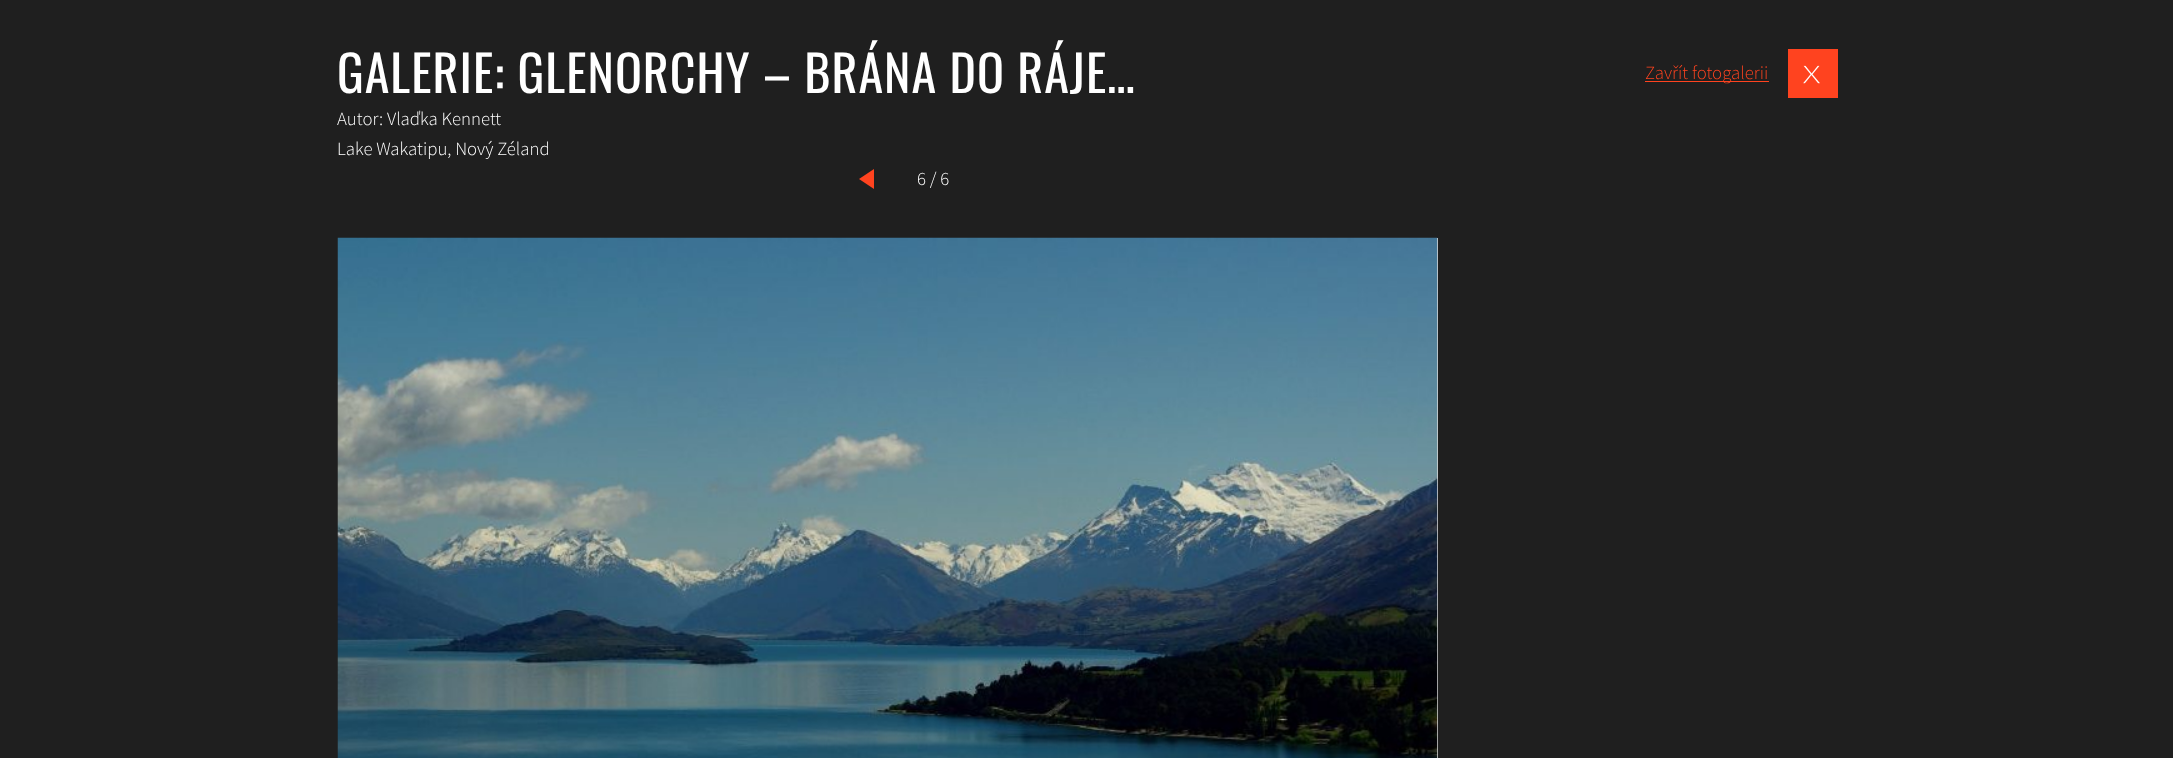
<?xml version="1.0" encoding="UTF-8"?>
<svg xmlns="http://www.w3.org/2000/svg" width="2173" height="758">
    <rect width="100%" height="100%" fill="#1F1F1F"/>
    <text x="337" y="93" font-family="Oswald" font-size="50" letter-spacing="1" fill="#FFFFFF">GALERIE: GLENORCHY – BRÁNA DO RÁJE…</text>
    <text font-family="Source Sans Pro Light" font-size="18.75" font-weight="300" fill="#FFFFFF">
        <tspan x="337" y="125">Autor: Vlaďka Kennett</tspan>
        <tspan x="337" y="155">Lake Wakatipu, Nový Zéland</tspan>
    </text>
    <path d="M 874 169 V 189 L 859 179 Z" fill="#FF431F"/>
    <text x="917" y="185" font-family="Source Sans Pro Light" font-size="18.75" font-weight="300" fill="#FFFFFF">6 / 6</text>
    <rect x="1645" y="81" width="124" height="1" fill="#FF431F"/>
    <text x="1645" y="79" font-family="Source Sans Pro Light" font-size="18.75" font-weight="300" fill="#FF431F">Zavřít fotogalerii</text>
    <rect x="1788" y="49" width="50" height="49" fill="#FF431F"/>
    <image x="1803" y="65" width="17" height="19" href="img_01.png"/>
    <rect x="1437" y="238" width="1" height="520" fill="#DADADA"/>
    <image x="337" y="237" width="1101" height="521" href="img_02.png"/>
</svg>
